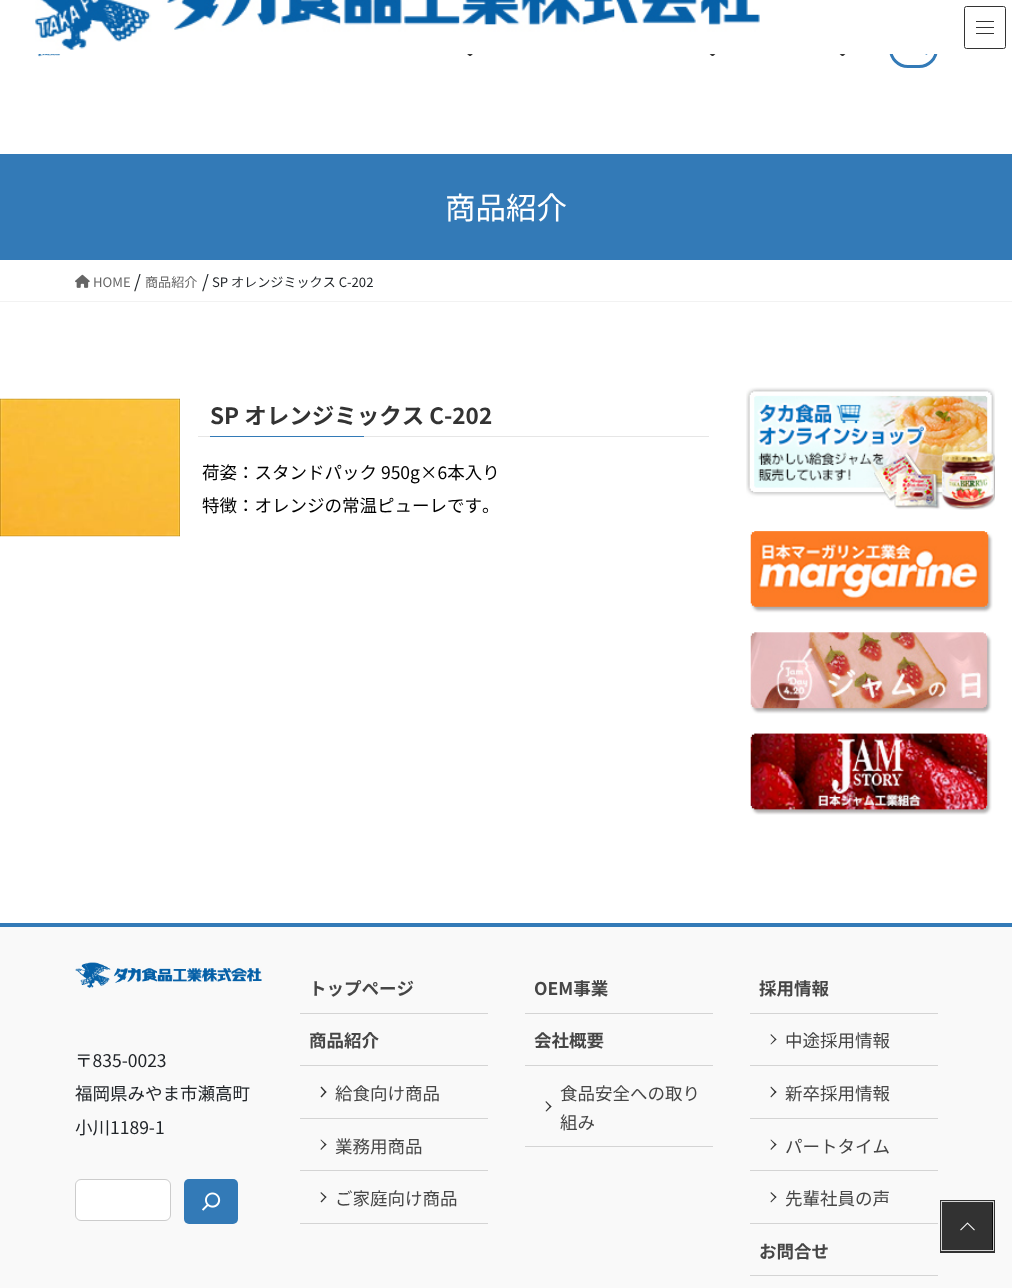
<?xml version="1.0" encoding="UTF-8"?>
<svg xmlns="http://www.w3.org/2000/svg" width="1012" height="1288">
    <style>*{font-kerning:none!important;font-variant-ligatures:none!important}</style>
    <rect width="100%" height="100%" fill="#FFFFFF"/>
    <rect x="890.5" y="31.5" width="46" height="35" rx="17.5" fill="none" stroke="#337AB7" stroke-width="3"/>
    <rect x="889" y="30" width="49" height="24" fill="#FFFFFF"/>
    <image x="35" y="0" width="725" height="50" href="img_01.png"/>
    <image x="37" y="54" width="24" height="3" href="img_02.png"/>
    <image x="467" y="54" width="6" height="2" href="img_03.png"/>
    <image x="709" y="54" width="7" height="2" href="img_04.png"/>
    <image x="839" y="54" width="7" height="2" href="img_04.png"/>
    <image x="925" y="54" width="3" height="1" href="img_05.png"/>
    <rect x="976" y="21" width="18" height="1" fill="#333333"/>
    <rect x="976" y="27" width="18" height="1" fill="#333333"/>
    <rect x="976" y="33" width="18" height="1" fill="#333333"/>
    <rect x="964.5" y="6.5" width="41" height="42" rx="2" fill="none" stroke="#333333"/>
    <rect x="0" y="154" width="1012" height="106" fill="#337AB7"/>
    <text x="445" y="219" font-family="Noto Sans JP" font-size="30.5" fill="#FFFFFF">商品紹介</text>
    <rect x="0" y="301" width="1012" height="1" fill="#F2F2F2"/>
    <image x="75" y="274" width="15" height="14" href="img_06.png"/>
    <text x="93" y="287" font-family="Noto Sans JP" font-size="13.1" fill="#666666">HOME</text>
    <text x="134" y="288" font-family="Noto Sans JP" font-size="17.5" fill="#212529">/</text>
    <text x="145" y="287" font-family="Noto Sans JP" font-size="13.1" fill="#666666">商品紹介</text>
    <text x="202" y="288" font-family="Noto Sans JP" font-size="17.5" fill="#212529">/</text>
    <text x="212" y="287" font-family="Noto Sans JP" font-size="13.1" fill="#212529">SP オレンジミックス C-202</text>
    <image x="0" y="398" width="180" height="139" href="img_07.png"/>
    <rect x="198" y="436" width="511" height="1" fill="#E6E6E6"/>
    <text x="210" y="424" font-family="Noto Sans JP" font-size="22.5" font-weight="700" fill="#333333">SP オレンジミックス C-202</text>
    <rect x="210" y="436" width="154" height="1" fill="#337AB7"/>
    <text font-family="Noto Sans JP" font-size="17.5" fill="#000000">
        <tspan x="202" y="479">荷姿：スタンドパック 950g×6本入り</tspan>
        <tspan x="202" y="512">特徴：オレンジの常温ピューレです。</tspan>
    </text>
    <image x="746" y="387" width="249" height="123" href="img_08.png"/>
    <image x="750" y="531" width="243" height="82" href="img_09.png"/>
    <image x="750" y="632" width="242" height="82" href="img_10.png"/>
    <image x="750" y="733" width="242" height="82" href="img_11.png"/>
    <rect x="0" y="927" width="1012" height="361" fill="#F9F9F9"/>
    <rect x="0" y="923" width="1012" height="4" fill="#337AB7"/>
    <image x="75" y="962" width="187" height="26" href="img_12.png"/>
    <text font-family="Noto Sans JP" font-size="17.5" fill="#212529">
        <tspan x="75" y="1067">〒835-0023</tspan>
        <tspan x="75" y="1100">福岡県みやま市瀬高町</tspan>
        <tspan x="75" y="1134">小川1189-1</tspan>
    </text>
    <rect x="75.5" y="1179.5" width="95" height="41" rx="5.5" fill="#FFFFFF" stroke="#CCCCCC"/>
    <rect x="184" y="1179" width="54" height="45" rx="5" fill="#337AB7"/>
    <image x="202" y="1192" width="19" height="19" href="img_13.png"/>
    <rect x="300" y="1013" width="188" height="1" fill="#D4D4D4"/>
    <text x="309" y="995" font-family="Noto Sans JP" font-size="17.5" font-weight="700" fill="#464646">トップページ</text>
    <rect x="300" y="1065" width="188" height="1" fill="#D4D4D4"/>
    <text x="309" y="1047" font-family="Noto Sans JP" font-size="17.5" font-weight="700" fill="#464646">商品紹介</text>
    <rect x="300" y="1118" width="188" height="1" fill="#D4D4D4"/>
    <path d="M 321.5 1086.5 L 326.5 1092 L 325.5 1093 L 320.5 1087.5 Z" fill="#333333"/>
    <path d="M 325.5 1091 L 326.5 1092 L 321.5 1097.5 L 320.5 1096.5 Z" fill="#333333"/>
    <text x="335" y="1100" font-family="Noto Sans JP" font-size="17.5" fill="#464646">給食向け商品</text>
    <rect x="300" y="1170" width="188" height="1" fill="#D4D4D4"/>
    <path d="M 321 1139.5 L 326.5 1144.5 L 325.5 1145.5 L 320.5 1140 Z" fill="#333333"/>
    <path d="M 325.5 1143.5 L 326.5 1144.5 L 321 1150 L 320.5 1149 Z" fill="#333333"/>
    <text x="335" y="1153" font-family="Noto Sans JP" font-size="17.5" fill="#464646">業務用商品</text>
    <rect x="300" y="1223" width="188" height="1" fill="#D4D4D4"/>
    <path d="M 321 1192 L 326.5 1197 L 325.5 1198 L 320.5 1193 Z" fill="#333333"/>
    <path d="M 325.5 1196.5 L 326.5 1197 L 321.5 1202.5 L 320.5 1201.5 Z" fill="#333333"/>
    <text x="335" y="1205" font-family="Noto Sans JP" font-size="17.5" fill="#464646">ご家庭向け商品</text>
    <rect x="525" y="1013" width="188" height="1" fill="#D4D4D4"/>
    <text x="534" y="995" font-family="Noto Sans JP" font-size="17.5" font-weight="700" fill="#464646">OEM事業</text>
    <rect x="525" y="1065" width="188" height="1" fill="#D4D4D4"/>
    <text x="534" y="1047" font-family="Noto Sans JP" font-size="17.5" font-weight="700" fill="#464646">会社概要</text>
    <rect x="525" y="1146" width="188" height="1" fill="#D4D4D4"/>
    <text x="560" y="1100" font-family="Noto Sans JP" font-size="17.5" fill="#464646">食品安全への取り</text>
    <path d="M 546 1101 L 551.5 1106.5 L 550.5 1107.5 L 545.5 1102 Z" fill="#333333"/>
    <path d="M 550.5 1105.5 L 551.5 1106.5 L 546.5 1111.5 L 545.5 1111 Z" fill="#333333"/>
    <text x="560" y="1129" font-family="Noto Sans JP" font-size="17.5" fill="#464646">組み</text>
    <rect x="750" y="1013" width="188" height="1" fill="#D4D4D4"/>
    <text x="759" y="995" font-family="Noto Sans JP" font-size="17.5" font-weight="700" fill="#464646">採用情報</text>
    <rect x="750" y="1065" width="188" height="1" fill="#D4D4D4"/>
    <path d="M 771 1034 L 776.5 1039.5 L 775.5 1040 L 770.5 1035 Z" fill="#333333"/>
    <path d="M 775.5 1038.5 L 776.5 1039.5 L 771 1044.5 L 770.5 1044 Z" fill="#333333"/>
    <text x="785" y="1047" font-family="Noto Sans JP" font-size="17.5" fill="#464646">中途採用情報</text>
    <rect x="750" y="1118" width="188" height="1" fill="#D4D4D4"/>
    <path d="M 771 1086.5 L 776.5 1092 L 775.5 1093 L 770.5 1087.5 Z" fill="#333333"/>
    <path d="M 775.5 1091 L 776.5 1092 L 771 1097.5 L 770.5 1096.5 Z" fill="#333333"/>
    <text x="785" y="1100" font-family="Noto Sans JP" font-size="17.5" fill="#464646">新卒採用情報</text>
    <rect x="750" y="1170" width="188" height="1" fill="#D4D4D4"/>
    <path d="M 771 1139.5 L 776.5 1144.5 L 775.5 1145.5 L 770.5 1140 Z" fill="#333333"/>
    <path d="M 775.5 1143.5 L 776.5 1144.5 L 771 1150 L 770.5 1149 Z" fill="#333333"/>
    <text x="785" y="1153" font-family="Noto Sans JP" font-size="17.5" fill="#464646">パートタイム</text>
    <rect x="750" y="1223" width="188" height="1" fill="#D4D4D4"/>
    <path d="M 771 1192 L 776.5 1197 L 775.5 1198 L 770.5 1193 Z" fill="#333333"/>
    <path d="M 775.5 1196.5 L 776.5 1197 L 771 1202.5 L 770.5 1201.5 Z" fill="#333333"/>
    <text x="785" y="1205" font-family="Noto Sans JP" font-size="17.5" fill="#464646">先輩社員の声</text>
    <rect x="750" y="1275" width="188" height="1" fill="#D4D4D4"/>
    <text x="759" y="1258" font-family="Noto Sans JP" font-size="17.5" font-weight="700" fill="#464646">お問合せ</text>
    <rect x="941.5" y="1201.5" width="52" height="50" fill="none" stroke="#323232" stroke-width="3"/>
    <rect x="941.5" y="1201.5" width="52" height="49" fill="none" stroke="#D6D6D6"/>
    <rect x="943" y="1203" width="50" height="47" fill="#000000" fill-opacity="0.8"/>
    <image x="960" y="1222" width="15" height="9" href="img_14.png"/>
</svg>
